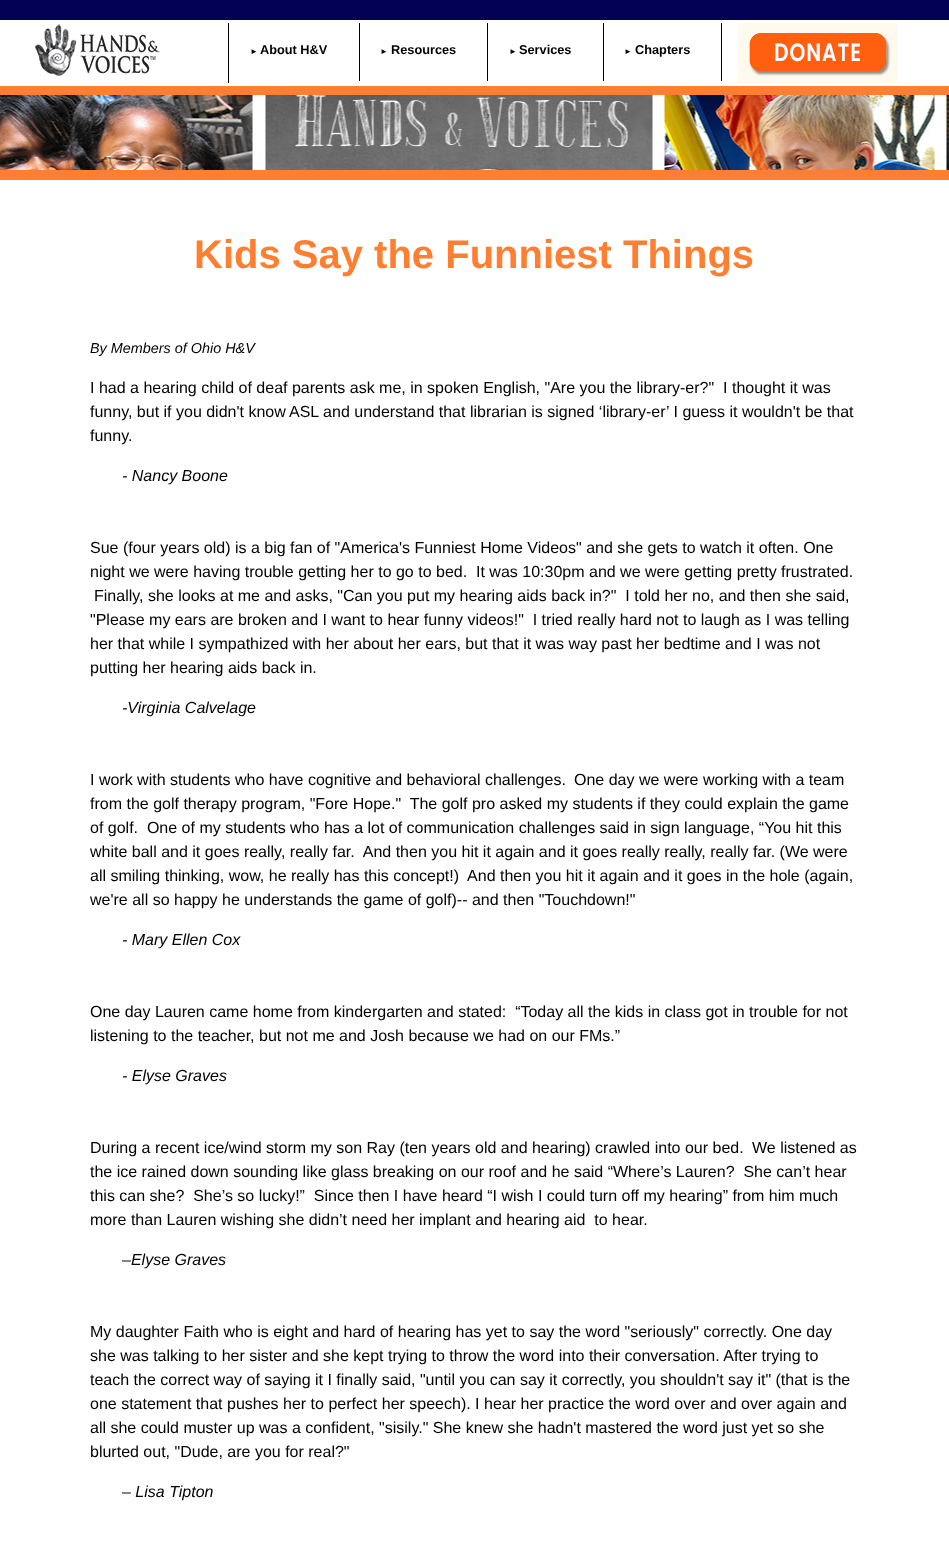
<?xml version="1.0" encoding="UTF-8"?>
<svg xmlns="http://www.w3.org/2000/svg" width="949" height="1554">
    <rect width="100%" height="100%" fill="#FFFFFF"/>
    <rect x="0" y="0" width="949" height="20" fill="#020155"/>
    <rect x="0" y="86" width="949" height="9" fill="#FF7F32"/>
    <rect x="228" y="23" width="1" height="60" fill="#000000"/>
    <image x="35" y="24" width="125" height="52" href="img_01.png"/>
    <rect x="359" y="23" width="1" height="58" fill="#000000"/>
    <text x="250" y="54" font-family="Liberation Sans" font-size="8" font-weight="700" fill="#000000">►</text>
    <text x="260" y="54" font-family="Liberation Sans" font-size="12.75" font-weight="700" fill="#000000">About H&amp;V</text>
    <rect x="487" y="23" width="1" height="58" fill="#000000"/>
    <text x="380" y="54" font-family="Liberation Sans" font-size="8" font-weight="700" fill="#000000">►</text>
    <text x="391" y="54" font-family="Liberation Sans" font-size="12.75" font-weight="700" fill="#000000">Resources</text>
    <rect x="603" y="23" width="1" height="58" fill="#000000"/>
    <text x="509" y="54" font-family="Liberation Sans" font-size="8" font-weight="700" fill="#000000">►</text>
    <text x="519" y="54" font-family="Liberation Sans" font-size="12.75" font-weight="700" fill="#000000">Services</text>
    <rect x="721" y="23" width="1" height="58" fill="#000000"/>
    <text x="624" y="54" font-family="Liberation Sans" font-size="8" font-weight="700" fill="#000000">►</text>
    <text x="635" y="54" font-family="Liberation Sans" font-size="12.75" font-weight="700" fill="#000000">Chapters</text>
    <image x="738" y="23" width="160" height="60" href="img_02.png"/>
    <image x="0" y="95" width="949" height="75" href="img_03.png"/>
    <rect x="0" y="170" width="949" height="10" fill="#FF7F32"/>
    <text x="194" y="268" font-family="Liberation Sans" font-size="40" font-weight="700" fill="#FF7F32">Kids Say the Funniest Things</text>
    <text x="90" y="353" font-family="Liberation Sans" font-size="14.4" font-style="italic" fill="#000000">By Members of Ohio H&amp;V</text>
    <text font-family="Liberation Sans" font-size="16" fill="#000000" xml:space="preserve"><tspan x="90" y="393">I had a hearing child of deaf parents ask me, in spoken English, "Are you the library-er?"  I thought it was</tspan><tspan x="90" y="417">funny, but if you didn't know</tspan></text>
    <text x="289" y="417" font-family="Liberation Sans" font-size="16" fill="#000000">ASL and understand that librarian is signed ‘library-er’ I guess it wouldn't be that</text>
    <text x="90" y="441" font-family="Liberation Sans" font-size="16" fill="#000000">funny.</text>
    <text x="122" y="481" font-family="Liberation Sans" font-size="16" font-style="italic" fill="#000000">- Nancy Boone</text>
    <text font-family="Liberation Sans" font-size="16" fill="#000000" xml:space="preserve"><tspan x="90" y="553">Sue (four years old) is a big fan of "America's Funniest Home Videos" and she gets to watch it often. One</tspan><tspan x="90" y="577">night we were having trouble getting her to go to bed.  It was 10:30pm and we were getting pretty frustrated.</tspan></text>
    <text x="94" y="601" font-family="Liberation Sans" font-size="16" fill="#000000" xml:space="preserve">Finally, she looks at me and asks, "Can you put my hearing aids back in?"  I told her no, and then she said,</text>
    <text font-family="Liberation Sans" font-size="16" fill="#000000" xml:space="preserve"><tspan x="90" y="625">"Please my ears are broken and I want to hear funny videos!"  I tried really hard not to laugh as I was telling</tspan><tspan x="90" y="649">her that while I sympathized with her about her ears, but that it was way past her bedtime and I was not</tspan><tspan x="90" y="673">putting her hearing aids back in.</tspan></text>
    <text x="122" y="713" font-family="Liberation Sans" font-size="16" font-style="italic" fill="#000000">-Virginia Calvelage</text>
    <text x="90" y="785" font-family="Liberation Sans" font-size="16" fill="#000000">I work with students who have cognitive and behavioral challenges.</text>
    <text x="574" y="785" font-family="Liberation Sans" font-size="16" fill="#000000">One day we were working with a team</text>
    <text font-family="Liberation Sans" font-size="16" fill="#000000" xml:space="preserve"><tspan x="90" y="809">from the golf therapy program, "Fore Hope."  The golf pro asked my students if they could explain the game</tspan><tspan x="90" y="833">of golf.  One of my students who has a lot of communication challenges said in sign language, “You hit this</tspan><tspan x="90" y="857">white ball and it goes really, really far.  And then you hit it again and it goes really really, really far. (We were</tspan><tspan x="90" y="881">all smiling thinking, wow, he really has this concept!)  And then you hit it again and it goes in the hole (again,</tspan><tspan x="90" y="905">we're all so happy he understands the game of golf)-- and then "Touchdown!"</tspan></text>
    <text x="122" y="945" font-family="Liberation Sans" font-size="16" font-style="italic" fill="#000000">- Mary Ellen Cox</text>
    <text font-family="Liberation Sans" font-size="16" fill="#000000" xml:space="preserve"><tspan x="90" y="1017">One day Lauren came home from kindergarten and stated:  “Today all the kids in class got in trouble for not</tspan><tspan x="90" y="1041">listening to the teacher, but not me and Josh because we had on our FMs.”</tspan></text>
    <text x="122" y="1081" font-family="Liberation Sans" font-size="16" font-style="italic" fill="#000000">- Elyse Graves</text>
    <text x="90" y="1153" font-family="Liberation Sans" font-size="16" fill="#000000">During a recent ice/wind storm my son Ray (ten years old and hearing) crawled into our bed.</text>
    <text x="752" y="1153" font-family="Liberation Sans" font-size="16" fill="#000000">We listened as</text>
    <text font-family="Liberation Sans" font-size="16" fill="#000000" xml:space="preserve"><tspan x="90" y="1177">the ice rained down sounding like glass breaking on our roof and he said “Where’s Lauren?  She can’t hear</tspan><tspan x="90" y="1201">this can she?  She’s so lucky!”  Since then I have heard “I wish I could turn off my hearing” from him much</tspan><tspan x="90" y="1225">more than Lauren wishing she didn’t need her implant and hearing aid  to hear.</tspan></text>
    <text x="122" y="1265" font-family="Liberation Sans" font-size="16" font-style="italic" fill="#000000">–Elyse Graves</text>
    <text font-family="Liberation Sans" font-size="16" fill="#000000">
        <tspan x="90" y="1337">My daughter Faith who is eight and hard of hearing has yet to say the word "seriously" correctly. One day</tspan>
        <tspan x="90" y="1361">she was talking to her sister and she kept trying to throw the word into their conversation. After trying to</tspan>
        <tspan x="90" y="1385">teach the correct way of saying it I finally said, "until you can say it correctly, you shouldn't say it" (that is the</tspan>
        <tspan x="90" y="1409">one statement that pushes her to perfect her speech). I hear her practice the word over and over again and</tspan>
        <tspan x="90" y="1433">all she could muster up was a confident, "sisily." She knew she hadn't mastered the word just yet so she</tspan>
        <tspan x="90" y="1457">blurted out, "Dude, are you for real?"</tspan>
    </text>
    <text x="122" y="1497" font-family="Liberation Sans" font-size="16" font-style="italic" fill="#000000">– Lisa Tipton</text>
</svg>
